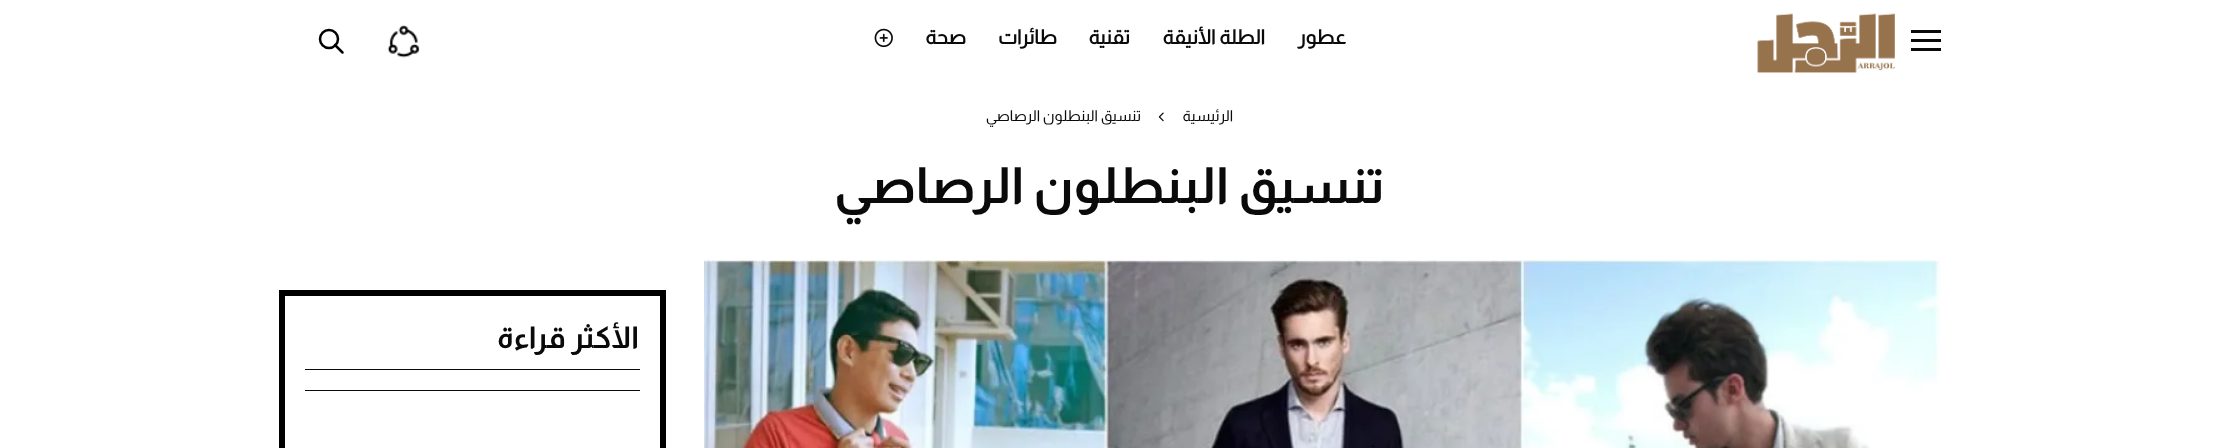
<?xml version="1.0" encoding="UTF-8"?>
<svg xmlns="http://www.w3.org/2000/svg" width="2218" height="448">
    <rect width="100%" height="100%" fill="#FFFFFF"/>
    <rect x="1911" y="48" width="30" height="3" fill="#0A0A0A"/>
    <rect x="1911" y="39" width="30" height="3" fill="#0A0A0A"/>
    <rect x="1911" y="30" width="30" height="3" fill="#0A0A0A"/>
    <image x="1757" y="13" width="138" height="60" href="img_01.png"/>
    <text x="1346" y="44" font-family="'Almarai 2'" font-size="20" font-weight="700" direction="rtl" fill="#0A0A0A">عطور</text>
    <text x="1265" y="44" font-family="'Almarai 2'" font-size="20" font-weight="700" direction="rtl" fill="#0A0A0A">الطلة الأنيقة</text>
    <text x="1130" y="44" font-family="'Almarai 2'" font-size="20" font-weight="700" direction="rtl" fill="#0A0A0A">تقنية</text>
    <text x="1057" y="44" font-family="'Almarai 2'" font-size="20" font-weight="700" direction="rtl" fill="#0A0A0A">طائرات</text>
    <text x="966" y="44" font-family="'Almarai 2'" font-size="20" font-weight="700" direction="rtl" fill="#0A0A0A">صحة</text>
    <image x="874" y="28" width="19" height="20" href="img_02.png"/>
    <image x="387" y="25" width="33" height="33" href="img_03.png"/>
    <circle cx="329" cy="39" r="9" fill="none" stroke="#000000" stroke-width="2.5"/>
    <path d="M 335 45 L 342.5 52.5" fill="none" stroke="#000000" stroke-width="2.5" stroke-linecap="round"/>
    <text x="1233" y="121" font-family="Almarai" font-size="15" direction="rtl" fill="#0A0A0A">الرئيسية</text>
    <image x="1158" y="112" width="6" height="10" href="img_04.png"/>
    <text x="1141" y="121" font-family="Almarai" font-size="15" direction="rtl" fill="#0A0A0A">تنسيق البنطلون الرصاصي</text>
    <text x="1385" y="203" font-family="Almarai" font-size="50" font-weight="700" direction="rtl" fill="#0A0A0A">تنسيق البنطلون الرصاصي</text>
    <image x="704" y="260" width="1237" height="188" href="img_05.png"/>
    <rect x="282" y="293" width="381" height="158" fill="none" stroke="#000000" stroke-width="6"/>
    <rect x="305" y="369" width="335" height="1" fill="#0A0A0A"/>
    <text x="639" y="348" font-family="Almarai" font-size="30" font-weight="700" direction="rtl" fill="#0A0A0A">الأكثر قراءة</text>
    <rect x="305" y="390" width="335" height="1" fill="#0A0A0A"/>
</svg>
